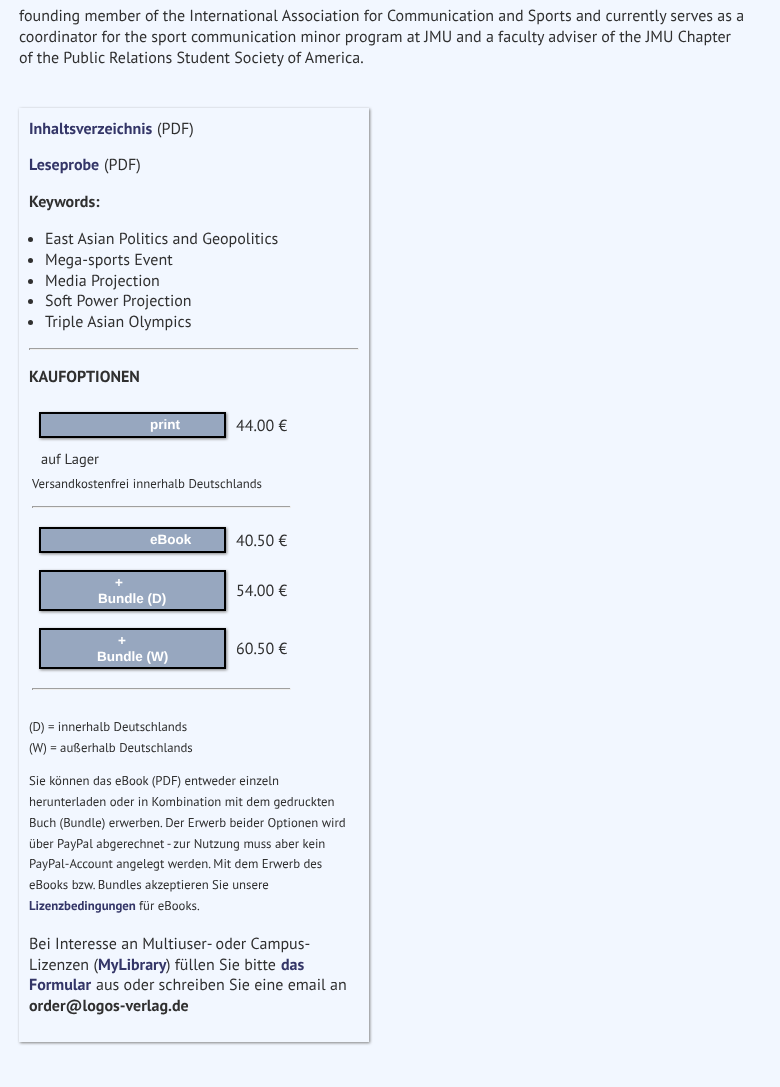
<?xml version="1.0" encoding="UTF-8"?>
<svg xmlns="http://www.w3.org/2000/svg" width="780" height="1087">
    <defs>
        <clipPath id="clip1"><path d="M 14 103 H 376 V 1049 H 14 Z M 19 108 H 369 V 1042 H 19 Z" clip-rule="evenodd"/></clipPath>
        <filter id="blur1" x="-50%" y="-200%" width="200%" height="500%"><feGaussianBlur stdDeviation="1.5"/></filter>
    </defs>
    <rect width="100%" height="100%" fill="#F2F7FF"/>
    <text font-family="PT Sans" font-size="16" fill="#303030">
        <tspan x="19" y="21">founding member of the International Association for Communication and Sports and currently serves as a</tspan>
        <tspan x="19" y="42">coordinator for the sport communication minor program at JMU and a faculty adviser of the JMU Chapter</tspan>
        <tspan x="19" y="63">of the Public Relations Student Society of America.</tspan>
    </text>
    <g clip-path="url(#clip1)">
        <rect x="20" y="109" width="350" height="934" fill="#808080" filter="url(#blur1)"/>
    </g>
    <text x="29" y="134" font-family="PT Sans" font-size="16" font-weight="700" fill="#343668">Inhaltsverzeichnis</text>
    <text x="157" y="134" font-family="PT Sans" font-size="16" fill="#303030">(PDF)</text>
    <text x="29" y="170" font-family="PT Sans" font-size="16" font-weight="700" fill="#343668">Leseprobe</text>
    <text x="104" y="170" font-family="PT Sans" font-size="16" fill="#303030">(PDF)</text>
    <text x="29" y="207" font-family="PT Sans" font-size="16" font-weight="700" fill="#303030">Keywords:</text>
    <circle cx="30.5" cy="239.5" r="2.5" fill="#303030"/>
    <text x="45" y="244" font-family="PT Sans" font-size="16" fill="#303030">East Asian Politics and Geopolitics</text>
    <circle cx="30.5" cy="260.5" r="2.5" fill="#303030"/>
    <text x="45" y="265" font-family="PT Sans" font-size="16" fill="#303030">Mega-sports Event</text>
    <circle cx="30.5" cy="281.5" r="2.5" fill="#303030"/>
    <text x="45" y="286" font-family="PT Sans" font-size="16" fill="#303030">Media Projection</text>
    <circle cx="30.5" cy="301.5" r="2.5" fill="#303030"/>
    <text x="45" y="306" font-family="PT Sans" font-size="16" fill="#303030">Soft Power Projection</text>
    <circle cx="30.5" cy="322.5" r="2.5" fill="#303030"/>
    <text x="45" y="327" font-family="PT Sans" font-size="16" fill="#303030">Triple Asian Olympics</text>
    <rect x="29" y="348" width="330" height="1" fill="#9F9F9F"/>
    <rect x="358" y="348" width="1" height="2" fill="#EEEEEE"/>
    <rect x="29" y="349" width="330" height="1" fill="#EEEEEE"/>
    <rect x="29" y="348" width="1" height="2" fill="#9F9F9F"/>
    <text x="29" y="382" font-family="PT Sans" font-size="16" font-weight="700" fill="#303030">KAUFOPTIONEN</text>
    <rect x="40" y="413" width="187" height="26" fill="#808080" filter="url(#blur1)"/>
    <rect x="40" y="413" width="185" height="24" fill="#97A7BF" stroke="#000000" stroke-width="2"/>
    <text x="150" y="429" font-family="Liberation Sans" font-size="13.5" font-weight="700" fill="#FFFFFF">print</text>
    <text x="236" y="431" font-family="PT Sans" font-size="16" fill="#303030">44.00 €</text>
    <text x="41" y="464" font-family="PT Sans" font-size="14.5" fill="#303030">auf Lager</text>
    <text x="32" y="488" font-family="PT Sans" font-size="12.8" fill="#303030">Versandkostenfrei innerhalb Deutschlands</text>
    <rect x="32" y="506" width="259" height="1" fill="#9F9F9F"/>
    <rect x="290" y="506" width="1" height="2" fill="#EEEEEE"/>
    <rect x="32" y="507" width="259" height="1" fill="#EEEEEE"/>
    <rect x="32" y="506" width="1" height="2" fill="#9F9F9F"/>
    <rect x="40" y="528" width="187" height="26" fill="#808080" filter="url(#blur1)"/>
    <rect x="40" y="528" width="185" height="24" fill="#97A7BF" stroke="#000000" stroke-width="2"/>
    <text x="150" y="544" font-family="Liberation Sans" font-size="13.5" font-weight="700" fill="#FFFFFF">eBook</text>
    <text x="236" y="546" font-family="PT Sans" font-size="16" fill="#303030">40.50 €</text>
    <rect x="40" y="571" width="187" height="41" fill="#808080" filter="url(#blur1)"/>
    <rect x="40" y="571" width="185" height="39" fill="#97A7BF" stroke="#000000" stroke-width="2"/>
    <text x="115" y="587" font-family="Liberation Sans" font-size="13.5" font-weight="700" fill="#FFFFFF">+</text>
    <text x="98" y="603" font-family="Liberation Sans" font-size="13.5" font-weight="700" fill="#FFFFFF">Bundle (D)</text>
    <text x="236" y="596" font-family="PT Sans" font-size="16" fill="#303030">54.00 €</text>
    <rect x="40" y="629" width="187" height="41" fill="#808080" filter="url(#blur1)"/>
    <rect x="40" y="629" width="185" height="39" fill="#97A7BF" stroke="#000000" stroke-width="2"/>
    <text x="118" y="645" font-family="Liberation Sans" font-size="13.5" font-weight="700" fill="#FFFFFF">+</text>
    <text x="97" y="661" font-family="Liberation Sans" font-size="13.5" font-weight="700" fill="#FFFFFF">Bundle (W)</text>
    <text x="236" y="654" font-family="PT Sans" font-size="16" fill="#303030">60.50 €</text>
    <rect x="32" y="688" width="259" height="1" fill="#9F9F9F"/>
    <rect x="290" y="688" width="1" height="2" fill="#EEEEEE"/>
    <rect x="32" y="689" width="259" height="1" fill="#EEEEEE"/>
    <rect x="32" y="688" width="1" height="2" fill="#9F9F9F"/>
    <text font-family="PT Sans" font-size="12.8" fill="#303030">
        <tspan x="29" y="731">(D) = innerhalb Deutschlands</tspan>
        <tspan x="29" y="752">(W) = außerhalb Deutschlands</tspan>
    </text>
    <text font-family="PT Sans" font-size="12.8" fill="#303030">
        <tspan x="29" y="785">Sie können das eBook (PDF) entweder einzeln</tspan>
        <tspan x="29" y="806">herunterladen oder in Kombination mit dem gedruckten</tspan>
        <tspan x="29" y="827">Buch (Bundle) erwerben. Der Erwerb beider Optionen wird</tspan>
        <tspan x="29" y="848">über PayPal abgerechnet - zur Nutzung muss aber kein</tspan>
        <tspan x="29" y="868">PayPal-Account angelegt werden. Mit dem Erwerb des</tspan>
        <tspan x="29" y="889">eBooks bzw. Bundles akzeptieren Sie unsere</tspan>
    </text>
    <text x="29" y="910" font-family="PT Sans" font-size="12.8" font-weight="700" fill="#343668">Lizenzbedingungen</text>
    <text x="139" y="910" font-family="PT Sans" font-size="12.8" fill="#303030">für eBooks.</text>
    <text font-family="PT Sans" font-size="16" fill="#303030">
        <tspan x="29" y="949">Bei Interesse an Multiuser- oder Campus-</tspan>
        <tspan x="29" y="970">Lizenzen (</tspan>
    </text>
    <text x="98" y="970" font-family="PT Sans" font-size="16" font-weight="700" fill="#343668">MyLibrary</text>
    <text x="166" y="970" font-family="PT Sans" font-size="16" fill="#303030">) füllen Sie bitte</text>
    <text x="281" y="970" font-family="PT Sans" font-size="16" font-weight="700" fill="#343668">das</text>
    <text x="29" y="990" font-family="PT Sans" font-size="16" font-weight="700" fill="#343668">Formular</text>
    <text x="96" y="990" font-family="PT Sans" font-size="16" fill="#303030">aus oder schreiben Sie eine email an</text>
    <text x="29" y="1011" font-family="PT Sans" font-size="16" font-weight="700" fill="#303030">order@logos-verlag.de</text>
</svg>
